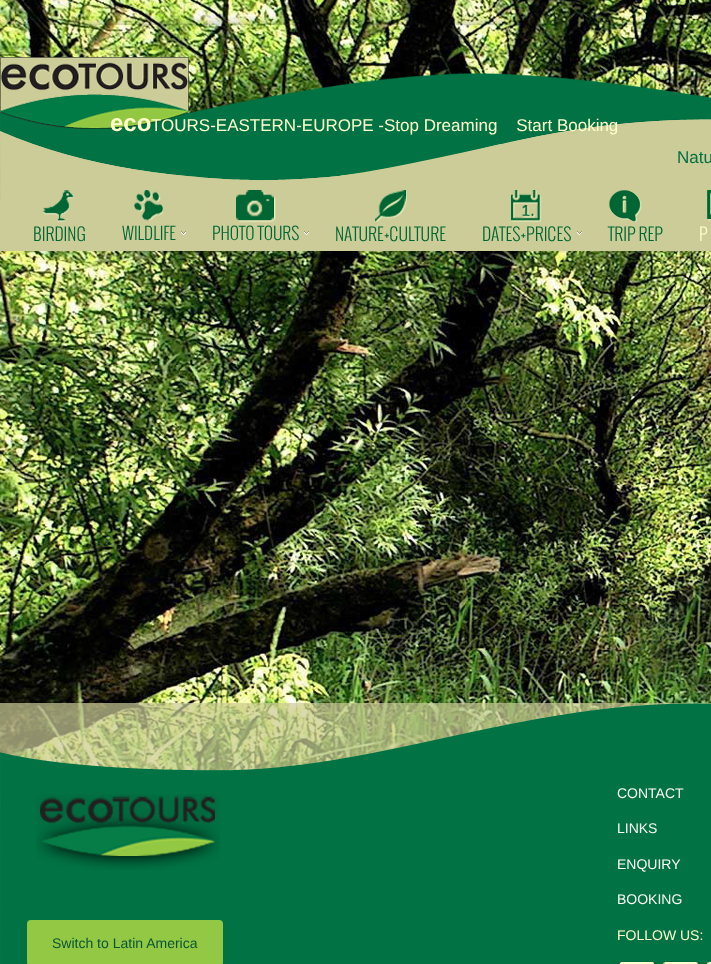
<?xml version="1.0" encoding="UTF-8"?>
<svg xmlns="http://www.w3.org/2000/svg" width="711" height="964">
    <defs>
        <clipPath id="clip1"><rect x="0" y="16" width="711" height="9"/></clipPath>
        <filter id="blur1" x="-50%" y="-200%" width="200%" height="500%"><feGaussianBlur stdDeviation="6"/></filter>
    </defs>
    <rect width="100%" height="100%" fill="#FFFFFF"/>
    <image x="0" y="0" width="711" height="964" href="img_01.png"/>
    <g clip-path="url(#clip1)">
        <rect x="0" y="25" width="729" height="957" fill="#000000" fill-opacity="0.3" filter="url(#blur1)"/>
    </g>
    <image x="0" y="73" width="711" height="127" href="img_02.png"/>
    <image x="0" y="57" width="189" height="72" href="img_03.png"/>
    <text x="110" y="131" font-family="Liberation Sans" font-size="24" font-weight="700" fill="#FFFFCC">eco</text>
    <text x="151" y="131" font-family="Liberation Sans" font-size="17" fill="#FFFFCC" xml:space="preserve">TOURS-EASTERN-EUROPE -Stop Dreaming    Start Booking</text>
    <text x="677" y="163" font-family="Liberation Sans" font-size="17" fill="#007144">Natu</text>
    <path d="M 6 200 H 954 V 246 C 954 250 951 253 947 253 H 13 C 9 253 6 250 6 246 Z M 10 200 H 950 V 246 C 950 248 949 249 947 249 H 13 C 11 249 10 248 10 246 Z" fill="#000000" fill-opacity="0.06" fill-rule="evenodd"/>
    <rect x="0" y="200" width="711" height="51" fill="#CCCC99"/>
    <image x="43" y="190" width="32" height="32" href="img_04.png"/>
    <text x="33" y="241" font-family="Oswald" font-size="17.25" font-weight="300" fill="#006633">BIRDING</text>
    <image x="134" y="190" width="29" height="31" href="img_05.png"/>
    <text x="122" y="240" font-family="Oswald" font-size="17" font-weight="300" fill="#006633">WILDLIFE</text>
    <image x="181" y="231" width="5" height="4" href="img_06.png"/>
    <image x="236" y="190" width="40" height="33" href="img_07.png"/>
    <text x="212" y="240" font-family="Oswald" font-size="17" font-weight="300" fill="#006633">PHOTO TOURS</text>
    <image x="304" y="231" width="5" height="4" href="img_06.png"/>
    <image x="375" y="190" width="32" height="32" href="img_08.png"/>
    <text x="335" y="241" font-family="Oswald" font-size="17.25" font-weight="300" fill="#006633">NATURE+CULTURE</text>
    <image x="511" y="190" width="32" height="32" href="img_09.png"/>
    <text x="482" y="241" font-family="Oswald" font-size="17.25" font-weight="300" fill="#006633">DATES+PRICES</text>
    <image x="577" y="231" width="5" height="4" href="img_06.png"/>
    <image x="609" y="190" width="33" height="32" href="img_10.png"/>
    <text x="608" y="241" font-family="Oswald" font-size="17.25" font-weight="300" fill="#006633">TRIP REP</text>
    <image x="707" y="190" width="4" height="31" href="img_11.png"/>
    <text x="699" y="241" font-family="Oswald" font-size="17.25" font-weight="300" fill="#FFFFCC">P</text>
    <rect x="0" y="703" width="711" height="261" fill="#CCCC99" fill-opacity="0.7"/>
    <image x="0" y="703" width="711" height="261" href="img_12.png"/>
    <text x="617" y="798" font-family="Liberation Sans" font-size="14" fill="#FBFBF4">CONTACT</text>
    <text x="617" y="833" font-family="Liberation Sans" font-size="14" fill="#FBFBF4">LINKS</text>
    <text x="617" y="869" font-family="Liberation Sans" font-size="14" fill="#FBFBF4">ENQUIRY</text>
    <text x="617" y="904" font-family="Liberation Sans" font-size="14" fill="#FBFBF4">BOOKING</text>
    <text x="617" y="940" font-family="Liberation Sans" font-size="14" fill="#FFFFCC">FOLLOW US:</text>
    <image x="620" y="961" width="36" height="3" href="img_13.png"/>
    <image x="663" y="961" width="37" height="3" href="img_14.png"/>
    <image x="707" y="961" width="4" height="3" href="img_15.png"/>
    <image x="36" y="794" width="184" height="76" href="img_16.png"/>
    <rect x="27" y="920" width="196" height="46" rx="4" fill="#92C843"/>
    <text x="52" y="948" font-family="Liberation Sans" font-size="14" fill="#0A5435">Switch to Latin America</text>
</svg>
